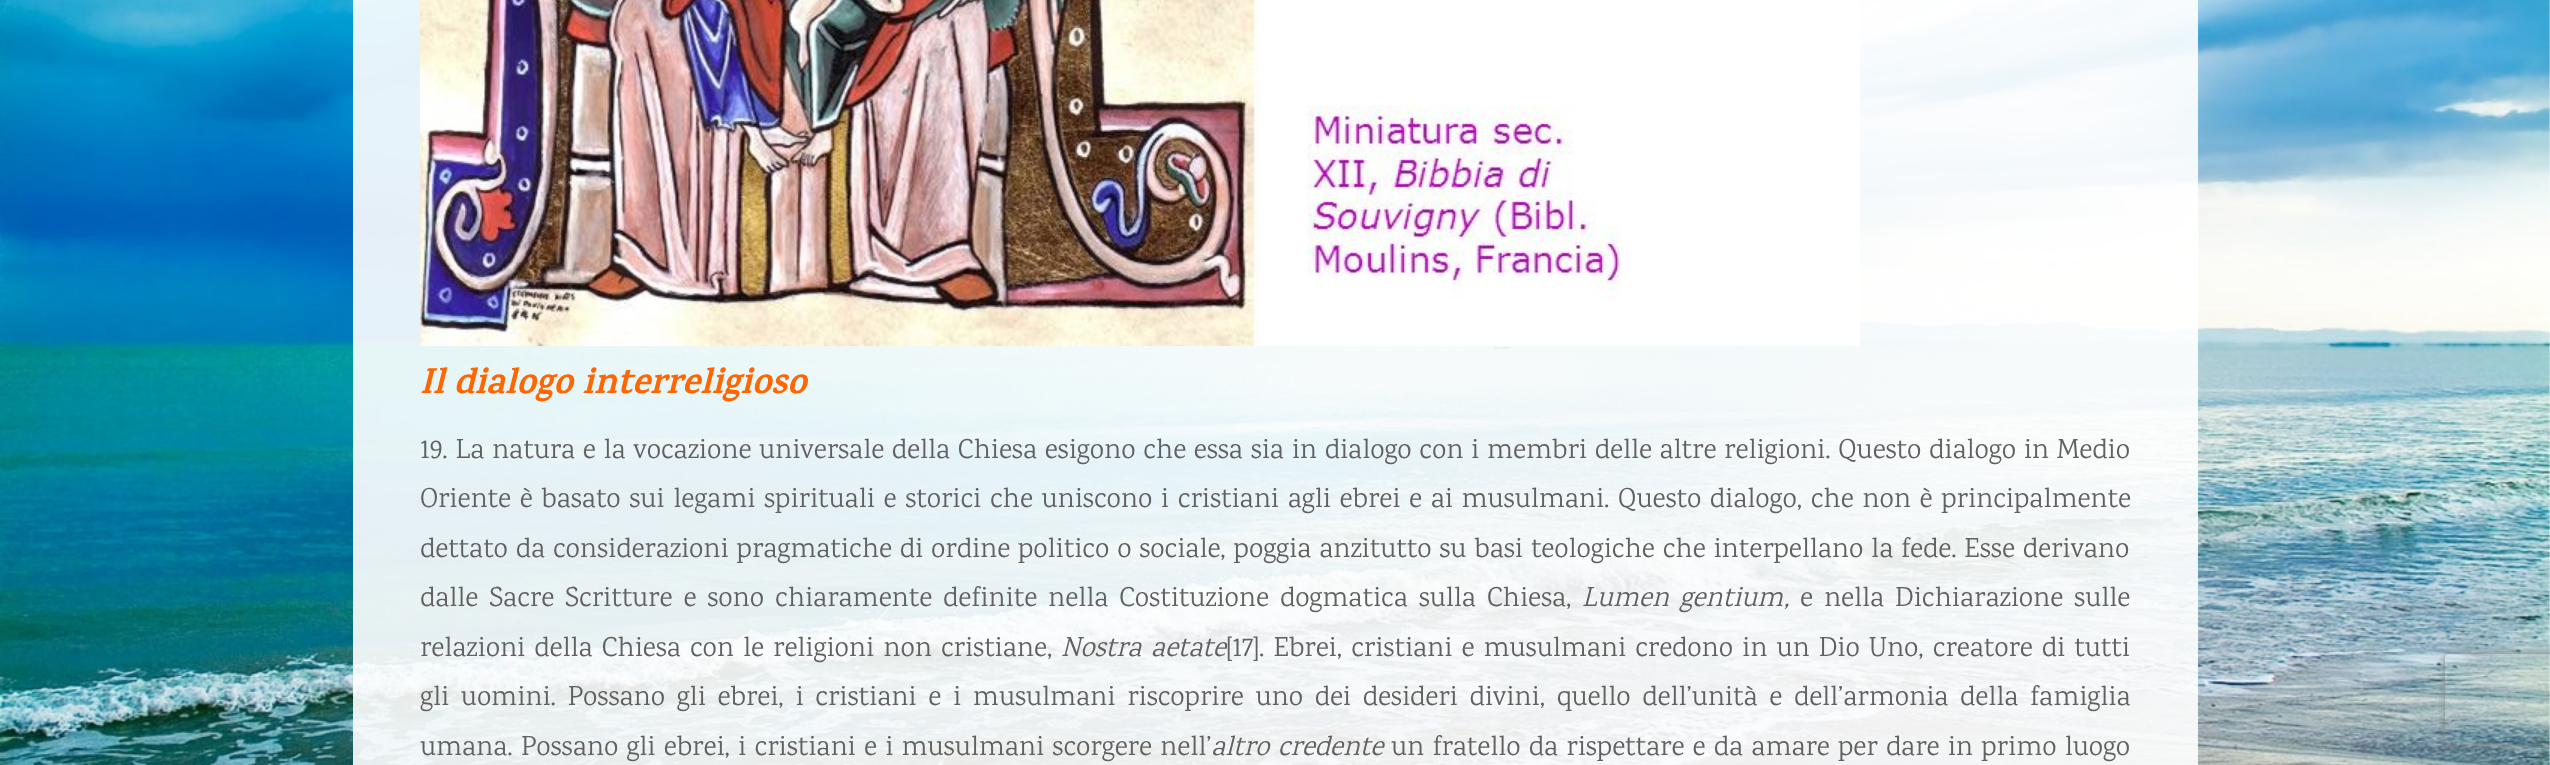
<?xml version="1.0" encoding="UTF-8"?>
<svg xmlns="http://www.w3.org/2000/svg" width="2550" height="765">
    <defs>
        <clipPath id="clip1"><path d="M 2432 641 H 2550 V 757 H 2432 Z M 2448 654 H 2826 C 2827.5 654 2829 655.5 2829 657 V 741 C 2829 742.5 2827.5 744 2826 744 H 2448 C 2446.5 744 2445 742.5 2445 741 V 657 C 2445 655.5 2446.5 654 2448 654 Z" clip-rule="evenodd"/></clipPath>
        <filter id="blur1" x="-50%" y="-200%" width="200%" height="500%"><feGaussianBlur stdDeviation="4"/></filter>
    </defs>
    <rect width="100%" height="100%" fill="#FFFFFF"/>
    <image x="0" y="0" width="2550" height="765" href="img_01.png"/>
    <rect x="353" y="0" width="1845" height="765" fill="#FFFFFF" fill-opacity="0.9"/>
    <image x="420" y="0" width="1440" height="346" href="img_02.png"/>
    <text x="420" y="393" font-family="Karma" font-size="36" font-weight="700" font-style="italic" fill="#FF6600">Il dialogo interreligioso</text>
    <text font-family="Karma" font-size="28" fill="#616161">
        <tspan x="420" y="458" word-spacing="0.25">19. La natura e la vocazione universale della Chiesa esigono che essa sia in dialogo con i membri delle altre religioni. Questo dialogo in Medio</tspan>
        <tspan x="420" y="507" word-spacing="1.2">Oriente è basato sui legami spirituali e storici che uniscono i cristiani agli ebrei e ai musulmani. Questo dialogo, che non è principalmente</tspan>
        <tspan x="420" y="557" word-spacing="0.4">dettato da considerazioni pragmatiche di ordine politico o sociale, poggia anzitutto su basi teologiche che interpellano la fede. Esse derivano</tspan>
        <tspan x="420" y="606" word-spacing="3.5">dalle Sacre Scritture e sono chiaramente definite nella Costituzione dogmatica sulla Chiesa,</tspan>
    </text>
    <text x="1582" y="606" word-spacing="3" font-family="Karma" font-size="28" font-style="italic" fill="#616161">Lumen gentium</text>
    <text x="1784" y="606" font-family="Karma" font-size="28" font-style="italic" fill="#616161">,</text>
    <text x="1800" y="606" word-spacing="3.5" font-family="Karma" font-size="28" fill="#616161">e nella Dichiarazione sulle</text>
    <text x="420" y="656" word-spacing="1.6" font-family="Karma" font-size="28" fill="#616161">relazioni della Chiesa con le religioni non cristiane,</text>
    <text x="1061" y="656" word-spacing="2" font-family="Karma" font-size="28" font-style="italic" fill="#616161">Nostra aetate</text>
    <text x="1226" y="656" font-family="Karma" font-size="28" fill="#616161">[17]</text>
    <text x="1259" y="656" word-spacing="1.6" font-family="Karma" font-size="28" fill="#616161">. Ebrei, cristiani e musulmani credono in un Dio Uno, creatore di tutti</text>
    <text font-family="Karma" font-size="28" fill="#616161">
        <tspan x="420" y="705" word-spacing="4.25">gli uomini. Possano gli ebrei, i cristiani e i musulmani riscoprire uno dei desideri divini, quello dell’unità e dell’armonia della famiglia</tspan>
        <tspan x="420" y="755" word-spacing="0.75">umana. Possano gli ebrei, i cristiani e i musulmani scorgere nell’</tspan>
    </text>
    <text x="1211" y="755" word-spacing="1" font-family="Karma" font-size="28" font-style="italic" fill="#616161">altro credente</text>
    <text x="1391" y="755" word-spacing="0.75" font-family="Karma" font-size="28" fill="#616161">un fratello da rispettare e da amare per dare in primo luogo</text>
    <g clip-path="url(#clip1)">
        <rect x="2445" y="654" width="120" height="90" rx="3" fill="#808080" filter="url(#blur1)"/>
    </g>
</svg>
